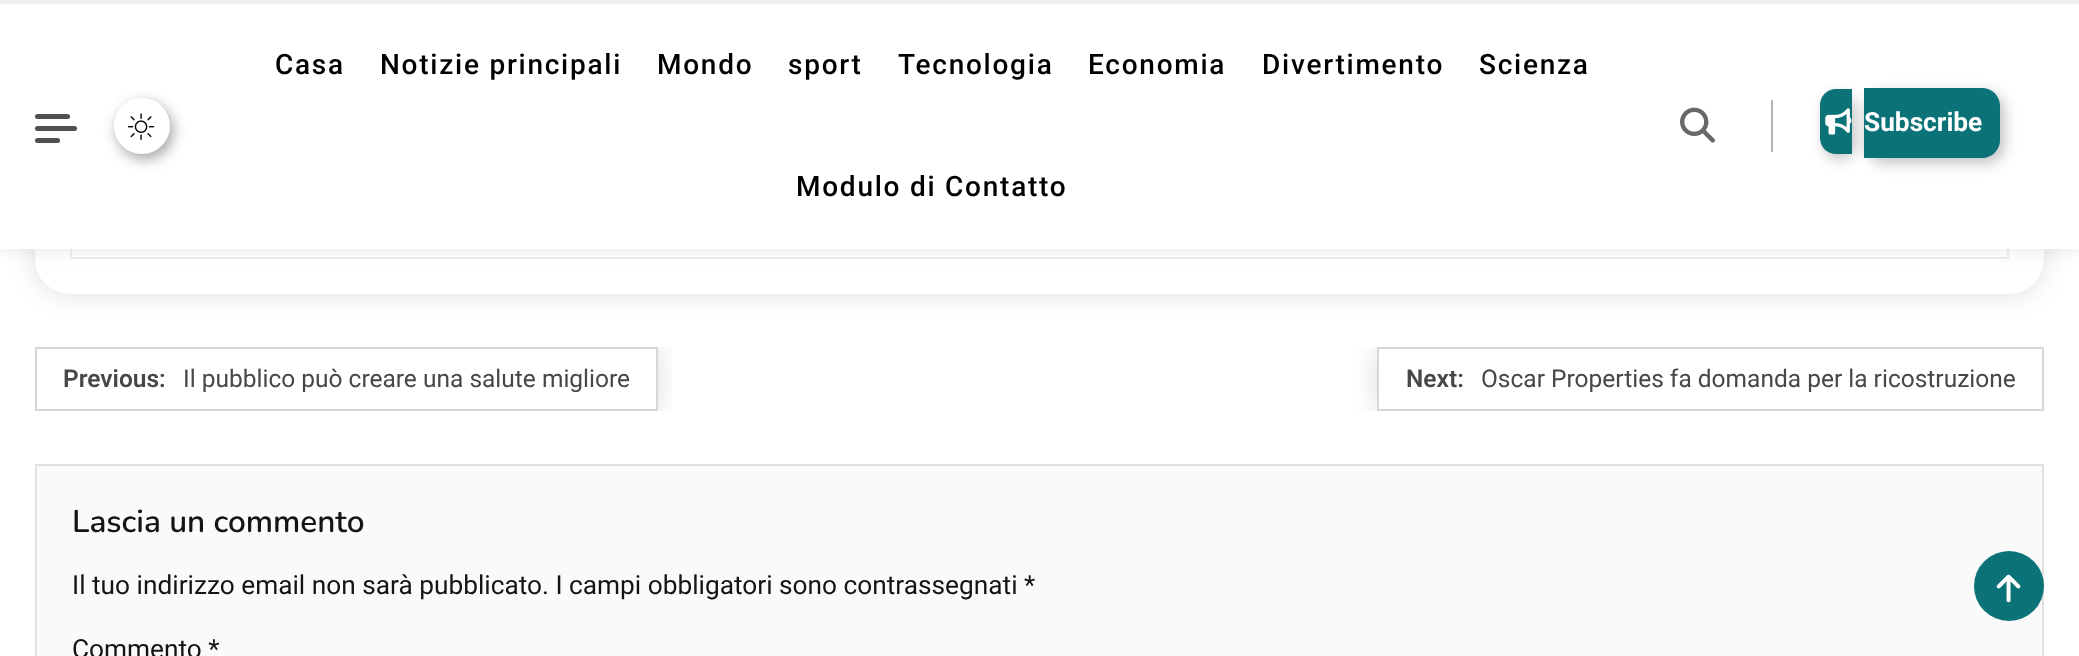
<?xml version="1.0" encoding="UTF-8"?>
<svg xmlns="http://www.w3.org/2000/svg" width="2079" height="656">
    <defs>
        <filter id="blur1" x="-50%" y="-200%" width="200%" height="500%"><feGaussianBlur stdDeviation="13"/></filter>
        <filter id="blur2" x="-50%" y="-200%" width="200%" height="500%"><feGaussianBlur stdDeviation="9"/></filter>
        <clipPath id="clip1"><path d="M 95 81 H 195 V 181 H 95 Z M 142 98 C 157.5 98 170 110.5 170 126 C 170 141.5 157.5 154 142 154 C 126.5 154 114 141.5 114 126 C 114 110.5 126.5 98 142 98 Z" clip-rule="evenodd"/></clipPath>
        <filter id="blur3" x="-50%" y="-200%" width="200%" height="500%"><feGaussianBlur stdDeviation="7"/></filter>
        <clipPath id="clip2"><rect x="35" y="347" width="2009" height="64"/></clipPath>
        <clipPath id="clip3"><rect x="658" y="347" width="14" height="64"/></clipPath>
    </defs>
    <rect width="100%" height="100%" fill="#FFFFFF"/>
    <rect x="35" y="-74" width="2009" height="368" rx="35" fill="#000000" fill-opacity="0.13" filter="url(#blur1)"/>
    <rect x="35" y="-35" width="2009" height="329" rx="35" fill="#FFFFFF"/>
    <rect x="71" y="111" width="1937" height="147" fill="none" stroke="#EEEEEE" stroke-width="2"/>
    <rect x="0" y="0" width="2079" height="249" fill="#000000" fill-opacity="0.1" filter="url(#blur2)"/>
    <rect x="0" y="4" width="2079" height="245" fill="#FFFFFF"/>
    <rect x="0" y="0" width="2079" height="4" fill="#EFEFEF"/>
    <rect x="35" y="114" width="35" height="5" rx="2.5" fill="#505050"/>
    <rect x="35" y="126" width="42" height="5" rx="2.5" fill="#505050"/>
    <rect x="35" y="138" width="25" height="5" rx="2.5" fill="#505050"/>
    <g clip-path="url(#clip1)">
        <rect x="117" y="103" width="56" height="56" rx="28" fill="#000000" fill-opacity="0.37" filter="url(#blur3)"/>
    </g>
    <image x="128" y="113" width="27" height="27" href="img_01.png"/>
    <text x="275" y="74" font-family="Roboto" font-size="28" font-weight="500" letter-spacing="1.75" fill="#000000">Casa</text>
    <text x="380" y="74" font-family="Roboto" font-size="28" font-weight="500" letter-spacing="1.75" fill="#000000">Notizie principali</text>
    <text x="657" y="74" font-family="Roboto" font-size="28" font-weight="500" letter-spacing="1.75" fill="#000000">Mondo</text>
    <text x="788" y="74" font-family="Roboto" font-size="28" font-weight="500" letter-spacing="1.75" fill="#000000">sport</text>
    <text x="898" y="74" font-family="Roboto" font-size="28" font-weight="500" letter-spacing="1.75" fill="#000000">Tecnologia</text>
    <text x="1088" y="74" font-family="Roboto" font-size="28" font-weight="500" letter-spacing="1.75" fill="#000000">Economia</text>
    <text x="1262" y="74" font-family="Roboto" font-size="28" font-weight="500" letter-spacing="1.75" fill="#000000">Divertimento</text>
    <text x="1479" y="74" font-family="Roboto" font-size="28" font-weight="500" letter-spacing="1.75" fill="#000000">Scienza</text>
    <text x="796" y="196" font-family="Roboto" font-size="28" font-weight="500" letter-spacing="1.75" fill="#000000">Modulo di Contatto</text>
    <image x="1680" y="107" width="35" height="36" href="img_02.png"/>
    <rect x="1771" y="100" width="2" height="52" fill="#B3B3B3"/>
    <rect x="1824" y="95" width="31" height="64" rx="15.5" fill="#000000" fill-opacity="0.25" filter="url(#blur3)"/>
    <path d="M 1836 89 H 1852 V 154 H 1836 C 1827 154 1820 147 1820 138 V 105 C 1820 96 1827 89 1836 89 Z" fill="#0B7378"/>
    <rect x="1867" y="93" width="137" height="70" rx="18" fill="#000000" fill-opacity="0.25" filter="url(#blur3)"/>
    <path d="M 1864 88 H 1982 C 1992 88 2000 96 2000 106 V 140 C 2000 150 1992 158 1982 158 H 1864 Z" fill="#0B7378"/>
    <image x="1825" y="108" width="27" height="27" href="img_03.png"/>
    <text x="1864" y="131" font-family="Roboto" font-size="26.25" font-weight="700" fill="#FFFFFF">Subscribe</text>
    <g clip-path="url(#clip2)">
        <g clip-path="url(#clip3)">
            <rect x="35" y="347" width="623" height="64" fill="#000000" fill-opacity="0.14" filter="url(#blur1)"/>
        </g>
    </g>
    <rect x="36" y="348" width="621" height="62" fill="none" stroke="#D9D6D6" stroke-width="2"/>
    <text x="63" y="387" font-family="Roboto" font-size="24.5" font-weight="600" fill="#484747">Previous:</text>
    <text x="183" y="387" font-family="Roboto" font-size="24.5" fill="#484747">Il pubblico può creare una salute migliore</text>
    <g clip-path="url(#clip2)">
        <rect x="1377" y="347" width="667" height="64" fill="#000000" fill-opacity="0.14" filter="url(#blur1)"/>
    </g>
    <rect x="1378" y="348" width="665" height="62" fill="#FFFFFF" stroke="#D9D6D6" stroke-width="2"/>
    <text x="1406" y="387" font-family="Roboto" font-size="24.5" font-weight="600" fill="#484747">Next:</text>
    <text x="1481" y="387" font-family="Roboto" font-size="24.5" fill="#484747">Oscar Properties fa domanda per la ricostruzione</text>
    <rect x="36" y="465" width="2007" height="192" fill="#FAFAFA" stroke="#E1E1E1" stroke-width="2"/>
    <text x="72" y="532" font-family="Nunito" font-size="31.5" font-weight="600" fill="#141414">Lascia un commento</text>
    <text x="72" y="594" font-family="Roboto" font-size="26.25" fill="#141414">Il tuo indirizzo email non sarà pubblicato. I campi obbligatori sono contrassegnati *</text>
    <text x="72" y="658" font-family="Roboto" font-size="26.25" fill="#141414">Commento *</text>
    <circle cx="2009" cy="586" r="35" fill="#0B7378"/>
    <image x="1996" y="574" width="25" height="29" href="img_04.png"/>
</svg>
